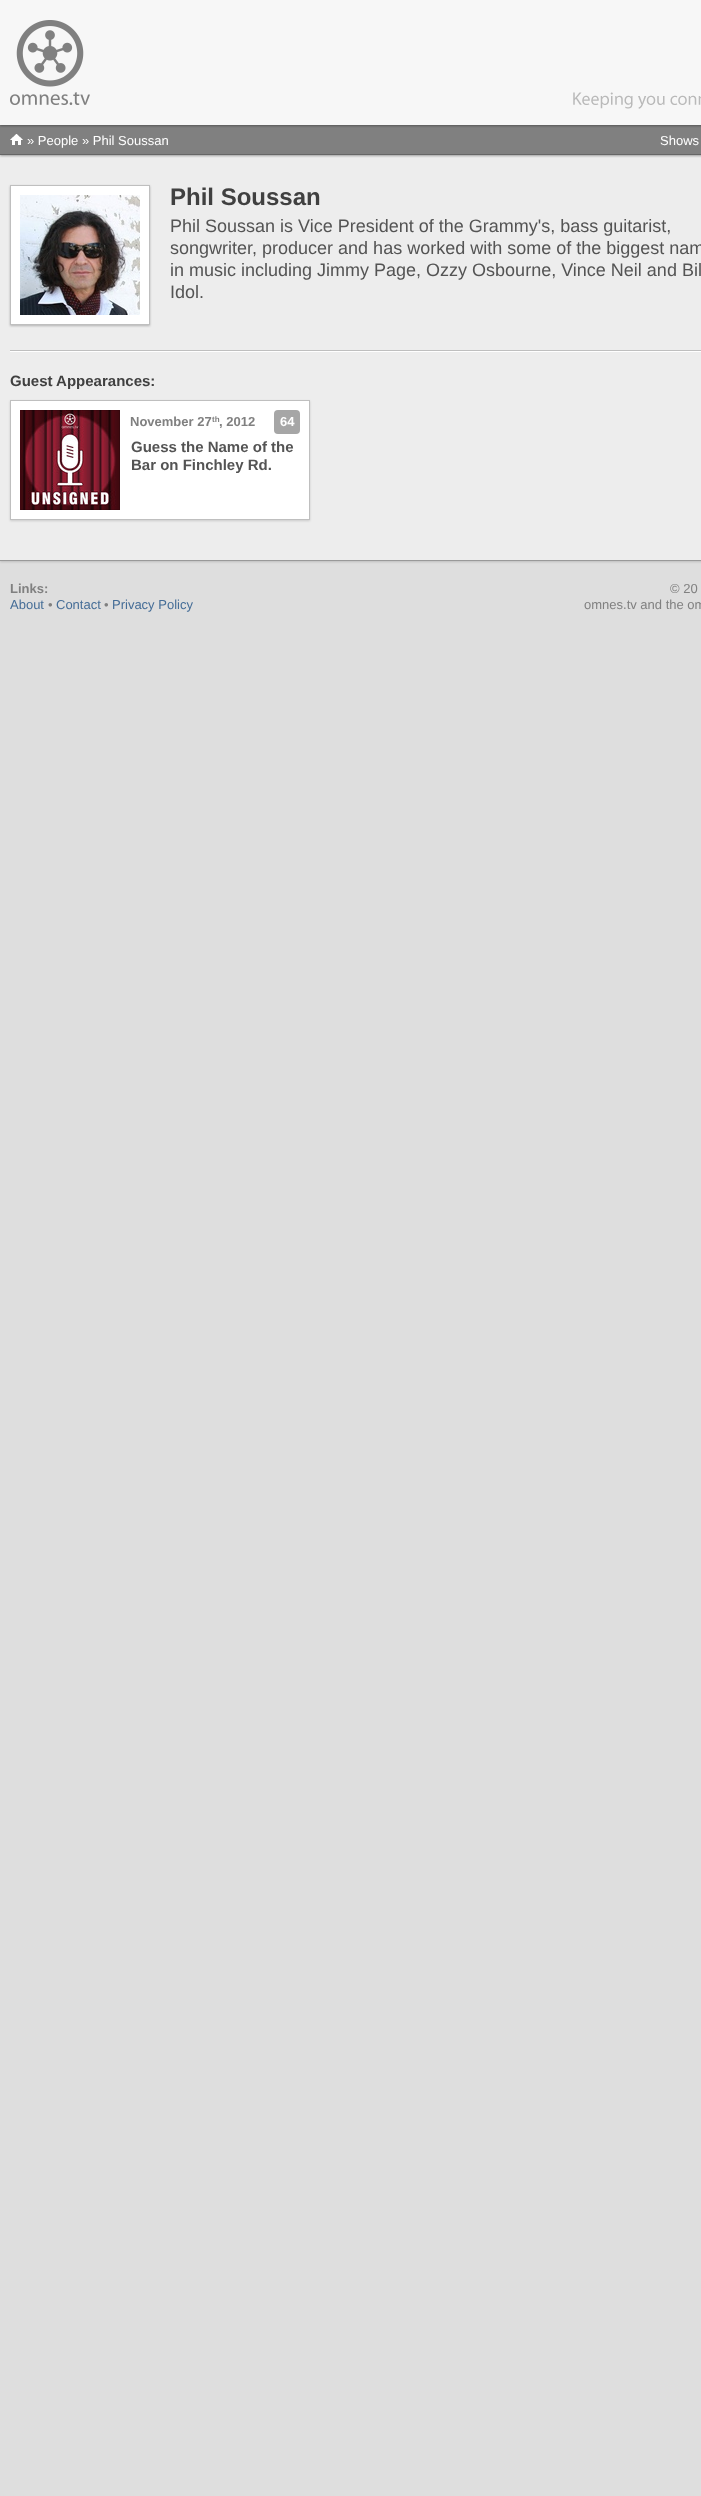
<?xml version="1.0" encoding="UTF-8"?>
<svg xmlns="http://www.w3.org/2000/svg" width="701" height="2496">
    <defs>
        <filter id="blur1" x="-50%" y="-200%" width="200%" height="500%"><feGaussianBlur stdDeviation="1"/></filter>
    </defs>
    <rect width="100%" height="100%" fill="#DEDEDE"/>
    <rect x="0" y="156" width="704" height="406" fill="#000000" fill-opacity="0.15" filter="url(#blur1)"/>
    <rect x="0" y="155" width="701" height="405" fill="#EDEDED"/>
    <rect x="0" y="126" width="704" height="30" fill="#000000" fill-opacity="0.33" filter="url(#blur1)"/>
    <rect x="0" y="125" width="701" height="29" fill="#808080"/>
    <rect x="0" y="1" width="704" height="125" fill="#000000" fill-opacity="0.33" filter="url(#blur1)"/>
    <rect x="0" y="0" width="701" height="125" fill="#F7F7F7"/>
    <image x="10" y="20" width="80" height="85" href="img_01.png"/>
    <image x="573" y="92" width="128" height="17" href="img_02.png"/>
    <rect x="0" y="154" width="701" height="1" fill="#666666"/>
    <image x="10" y="134" width="13" height="11" href="img_03.png"/>
    <text x="27" y="145" font-family="Liberation Sans" font-size="13" fill="#FFFFFF">» People » Phil Soussan</text>
    <text x="660" y="145" font-family="Liberation Sans" font-size="13" fill="#FFFFFF">Shows</text>
    <rect x="0" y="560" width="701" height="1" fill="#999999"/>
    <rect x="10" y="186" width="140" height="140" fill="#000000" fill-opacity="0.25" filter="url(#blur1)"/>
    <rect x="10.5" y="185.5" width="139" height="139" fill="#FFFFFF" stroke="#BFBFBF"/>
    <image x="20" y="195" width="120" height="120" href="img_04.png"/>
    <text x="170" y="205" font-family="Liberation Sans" font-size="24" font-weight="700" fill="#404040">Phil Soussan</text>
    <text font-family="Liberation Sans" font-size="18" fill="#545454">
        <tspan x="170" y="232">Phil Soussan is Vice President of the Grammy's, bass guitarist,</tspan>
        <tspan x="170" y="254">songwriter, producer and has worked with some of the biggest nam</tspan>
        <tspan x="170" y="276">in music including Jimmy Page, Ozzy Osbourne, Vince Neil and Bil</tspan>
        <tspan x="170" y="298">Idol.</tspan>
    </text>
    <rect x="10" y="350" width="691" height="1" fill="#BFBFBF"/>
    <rect x="10" y="351" width="691" height="1" fill="#FFFFFF"/>
    <text x="10" y="386" font-family="Liberation Sans" font-size="15" font-weight="700" fill="#404040">Guest Appearances:</text>
    <rect x="10" y="401" width="300" height="120" fill="#000000" fill-opacity="0.15" filter="url(#blur1)"/>
    <rect x="10.5" y="400.5" width="299" height="119" fill="#FFFFFF" stroke="#BFBFBF"/>
    <image x="20" y="410" width="100" height="100" href="img_05.png"/>
    <rect x="20.5" y="410.5" width="99" height="99" fill="none" stroke="#000000" stroke-opacity="0.1"/>
    <text x="130" y="426" font-family="Liberation Sans" font-size="13" font-weight="700" fill="#808080">November 27</text>
    <text x="212" y="422" font-family="Liberation Sans" font-size="8" font-weight="700" fill="#808080">th</text>
    <text x="219" y="426" font-family="Liberation Sans" font-size="13" font-weight="700" fill="#808080">, 2012</text>
    <rect x="274" y="410" width="26" height="24" rx="4" fill="#A6A6A6"/>
    <text x="280" y="426" font-family="Liberation Sans" font-size="13" font-weight="700" fill="#FFFFFF">64</text>
    <text font-family="Liberation Sans" font-size="15" font-weight="700" fill="#545454">
        <tspan x="131" y="452">Guess the Name of the</tspan>
        <tspan x="131" y="470">Bar on Finchley Rd.</tspan>
    </text>
    <text x="10" y="593" font-family="Liberation Sans" font-size="13" font-weight="700" fill="#808080">Links:</text>
    <text x="10" y="609" font-family="Liberation Sans" font-size="13" fill="#456D97">About</text>
    <text x="48" y="609" font-family="Liberation Sans" font-size="13" fill="#808080">•</text>
    <text x="56" y="609" font-family="Liberation Sans" font-size="13" fill="#456D97">Contact</text>
    <text x="104" y="609" font-family="Liberation Sans" font-size="13" fill="#808080">•</text>
    <text x="112" y="609" font-family="Liberation Sans" font-size="13" fill="#456D97">Privacy Policy</text>
    <text x="670" y="593" font-family="Liberation Sans" font-size="13" fill="#808080">© 20</text>
    <text x="584" y="609" font-family="Liberation Sans" font-size="13" fill="#808080">omnes.tv and the om</text>
</svg>
